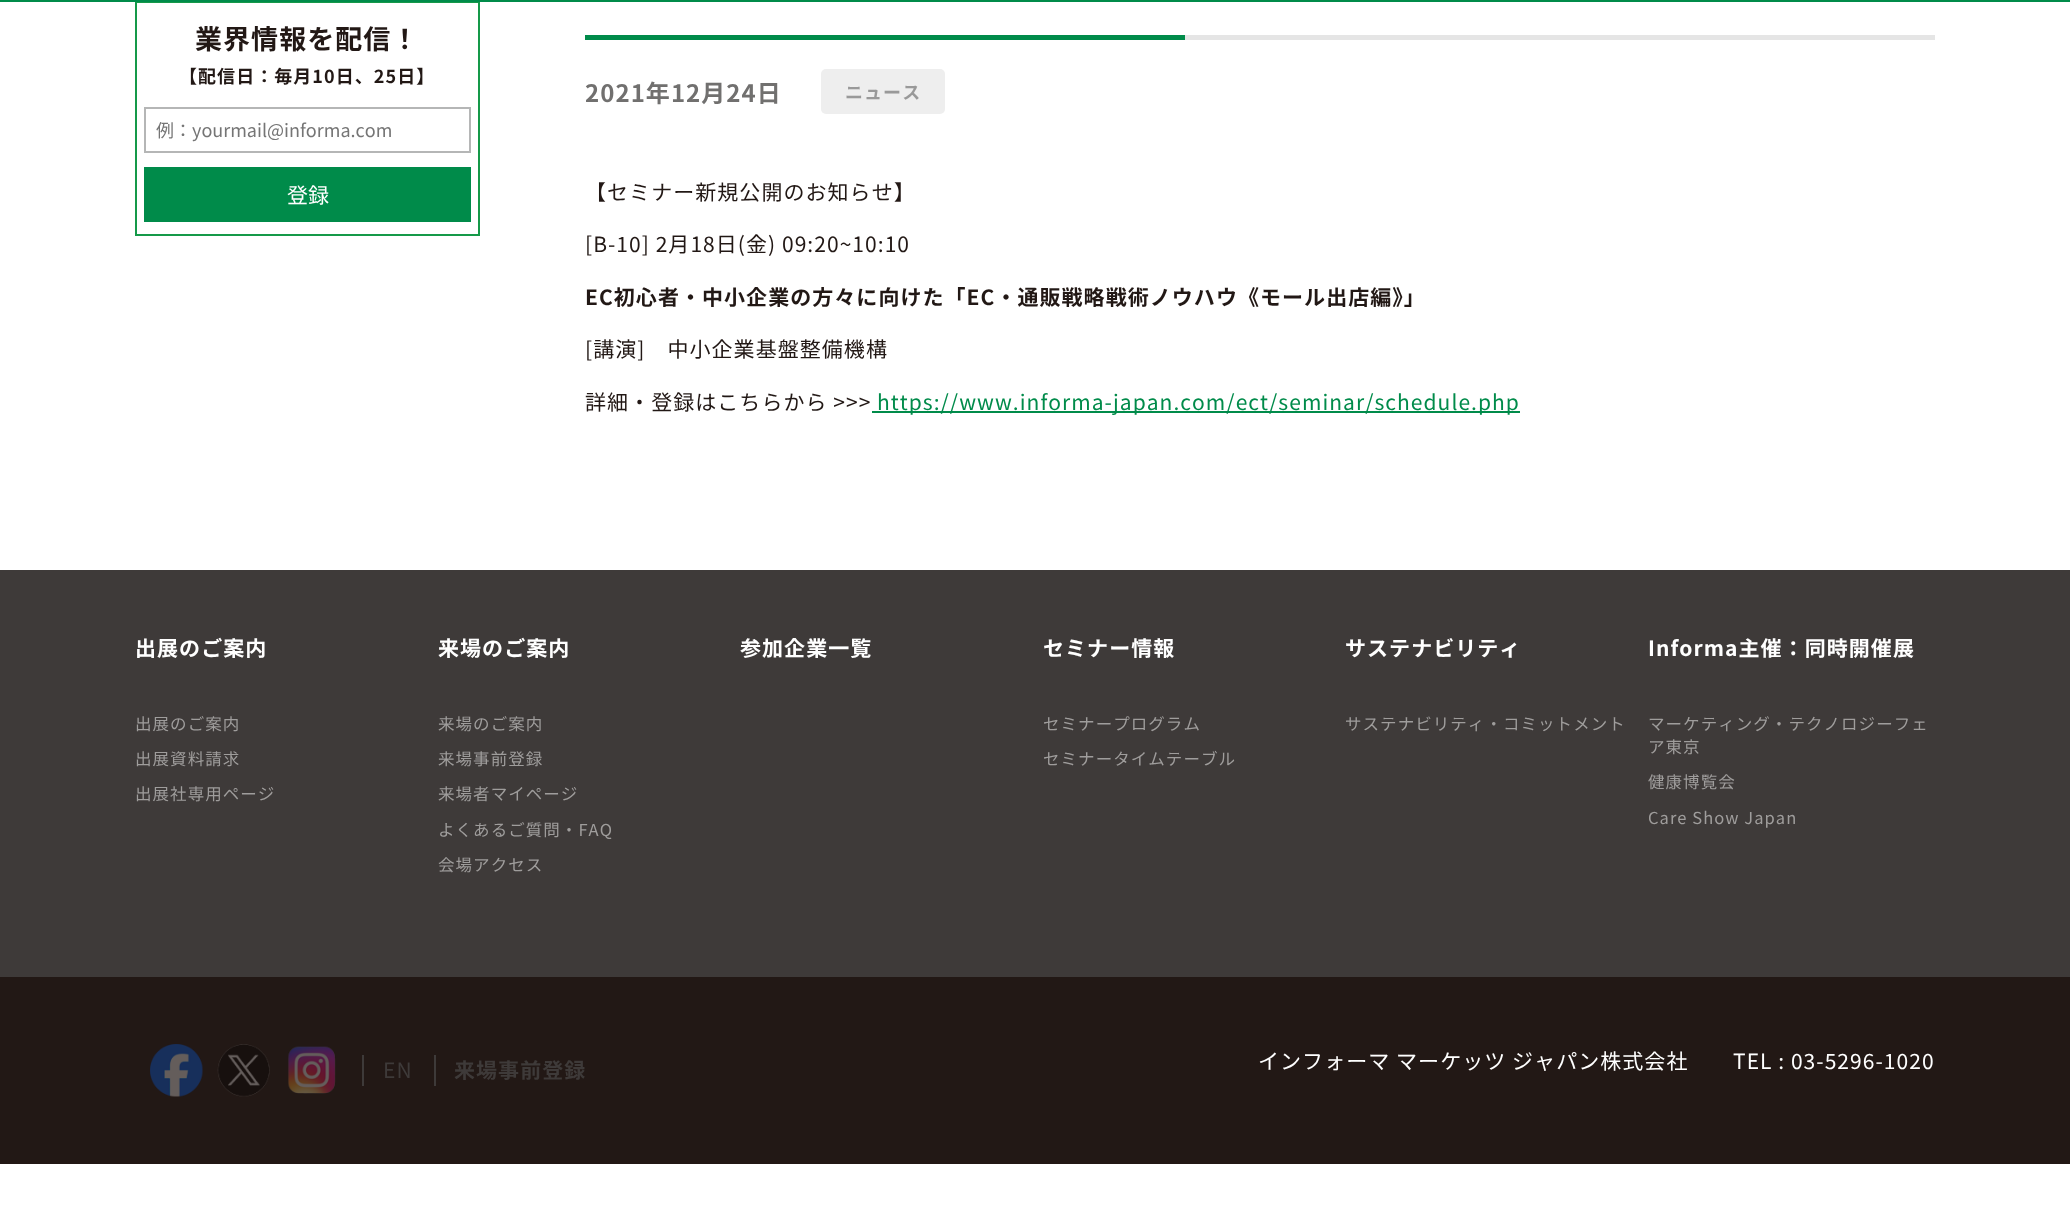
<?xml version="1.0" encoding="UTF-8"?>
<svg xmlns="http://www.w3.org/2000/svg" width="2070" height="1219">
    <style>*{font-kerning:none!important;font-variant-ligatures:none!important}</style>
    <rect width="100%" height="100%" fill="#FFFFFF"/>
    <rect x="136" y="-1" width="343" height="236" fill="none" stroke="#159949" stroke-width="2"/>
    <rect x="0" y="0" width="2070" height="2" fill="#008B4A"/>
    <rect x="137" y="2" width="342" height="1" fill="#159949"/>
    <text x="195" y="49" font-family="Noto Sans JP" font-size="27" font-weight="700" letter-spacing="1.05" fill="#221815">業界情報を配信！</text>
    <text x="179" y="83" font-family="Noto Sans JP" font-size="18" font-weight="700" letter-spacing="1.05" fill="#221815">【配信日：毎月10日、25日】</text>
    <rect x="145" y="108" width="325" height="44" fill="none" stroke="#B5B6B6" stroke-width="2"/>
    <text x="156" y="137" font-family="Noto Sans JP" font-size="18" fill="#757575">例：yourmail@informa.com</text>
    <rect x="144" y="167" width="327" height="55" fill="#008B4A"/>
    <text x="287" y="203" font-family="Noto Sans JP" font-size="21" fill="#FFFFFF">登録</text>
    <rect x="585" y="35" width="600" height="5" fill="#008B4A"/>
    <rect x="1185" y="35" width="750" height="5" fill="#E5E5E5"/>
    <text x="585" y="102" font-family="Noto Sans JP" font-size="24" font-weight="700" letter-spacing="1.05" fill="#71706F">2021年12月24日</text>
    <rect x="821" y="69" width="124" height="45" rx="5" fill="#EEEEEE"/>
    <text x="845" y="99" font-family="Noto Sans JP" font-size="18" font-weight="700" letter-spacing="1.05" fill="#999999">ニュース</text>
    <text x="585" y="200" font-family="Noto Sans JP" font-size="21" letter-spacing="1.05" fill="#221815">【セミナー新規公開のお知らせ】</text>
    <text x="585" y="252" font-family="Noto Sans JP" font-size="21" letter-spacing="1.05" fill="#221815">[B-10] 2月18日(金) 09:20~10:10</text>
    <text x="585" y="305" font-family="Noto Sans JP" font-size="21" font-weight="700" letter-spacing="1.05" fill="#221815">EC初心者・中小企業の方々に向けた「EC・通販戦略戦術ノウハウ《モール出店編》」</text>
    <text x="585" y="357" font-family="Noto Sans JP" font-size="21" letter-spacing="1.05" fill="#221815">[講演]　中小企業基盤整備機構</text>
    <text x="585" y="410" font-family="Noto Sans JP" font-size="21" letter-spacing="1.05" fill="#221815">詳細・登録はこちらから &gt;&gt;&gt;</text>
    <rect x="872" y="411" width="648" height="2" fill="#008B4A"/>
    <text x="877" y="410" font-family="Noto Sans JP" font-size="21" letter-spacing="1.05" fill="#008B4A">https://www.informa-japan.com/ect/seminar/schedule.php</text>
    <rect x="0" y="570" width="2070" height="407" fill="#3E3A39"/>
    <text x="135" y="656" font-family="Noto Sans JP" font-size="21" font-weight="700" letter-spacing="1.05" fill="#FFFFFF">出展のご案内</text>
    <text x="135" y="730" font-family="Noto Sans JP" font-size="16.5" letter-spacing="1.05" fill="#9F9D9C">出展のご案内</text>
    <text x="135" y="765" font-family="Noto Sans JP" font-size="16.5" letter-spacing="1.05" fill="#9F9D9C">出展資料請求</text>
    <text x="135" y="800" font-family="Noto Sans JP" font-size="16.5" letter-spacing="1.05" fill="#9F9D9C">出展社専用ページ</text>
    <text x="438" y="656" font-family="Noto Sans JP" font-size="21" font-weight="700" letter-spacing="1.05" fill="#FFFFFF">来場のご案内</text>
    <text x="438" y="730" font-family="Noto Sans JP" font-size="16.5" letter-spacing="1.05" fill="#9F9D9C">来場のご案内</text>
    <text x="438" y="765" font-family="Noto Sans JP" font-size="16.5" letter-spacing="1.05" fill="#9F9D9C">来場事前登録</text>
    <text x="438" y="800" font-family="Noto Sans JP" font-size="16.5" letter-spacing="1.05" fill="#9F9D9C">来場者マイページ</text>
    <text x="438" y="836" font-family="Noto Sans JP" font-size="16.5" letter-spacing="1.05" fill="#9F9D9C">よくあるご質問・FAQ</text>
    <text x="438" y="871" font-family="Noto Sans JP" font-size="16.5" letter-spacing="1.05" fill="#9F9D9C">会場アクセス</text>
    <text x="740" y="656" font-family="Noto Sans JP" font-size="21" font-weight="700" letter-spacing="1.05" fill="#FFFFFF">参加企業一覧</text>
    <text x="1043" y="656" font-family="Noto Sans JP" font-size="21" font-weight="700" letter-spacing="1.05" fill="#FFFFFF">セミナー情報</text>
    <text x="1043" y="730" font-family="Noto Sans JP" font-size="16.5" letter-spacing="1.05" fill="#9F9D9C">セミナープログラム</text>
    <text x="1043" y="765" font-family="Noto Sans JP" font-size="16.5" letter-spacing="1.05" fill="#9F9D9C">セミナータイムテーブル</text>
    <text x="1345" y="656" font-family="Noto Sans JP" font-size="21" font-weight="700" letter-spacing="1.05" fill="#FFFFFF">サステナビリティ</text>
    <text x="1345" y="730" font-family="Noto Sans JP" font-size="16.5" letter-spacing="1.05" fill="#9F9D9C">サステナビリティ・コミットメント</text>
    <text x="1648" y="656" font-family="Noto Sans JP" font-size="21" font-weight="700" letter-spacing="1.05" fill="#FFFFFF">Informa主催：同時開催展</text>
    <text font-family="Noto Sans JP" font-size="16.5" letter-spacing="1.05" fill="#9F9D9C">
        <tspan x="1648" y="730">マーケティング・テクノロジーフェ</tspan>
        <tspan x="1648" y="753">ア東京</tspan>
    </text>
    <text x="1648" y="788" font-family="Noto Sans JP" font-size="16.5" letter-spacing="1.05" fill="#9F9D9C">健康博覧会</text>
    <text x="1648" y="824" font-family="Noto Sans JP" font-size="16.5" letter-spacing="1.05" fill="#9F9D9C">Care Show Japan</text>
    <rect x="0" y="977" width="2070" height="187" fill="#221815"/>
    <image x="150" y="1044" width="53" height="53" href="img_01.png"/>
    <image x="217" y="1044" width="53" height="53" href="img_02.png"/>
    <image x="288" y="1046" width="48" height="48" href="img_03.png"/>
    <rect x="362" y="1055" width="2" height="31" fill="#3E3A39"/>
    <text x="383" y="1078" font-family="Noto Sans JP" font-size="21" letter-spacing="1.05" fill="#3E3A39">EN</text>
    <rect x="434" y="1055" width="2" height="31" fill="#3E3A39"/>
    <text x="454" y="1078" font-family="Noto Sans JP" font-size="21" font-weight="700" letter-spacing="1.05" fill="#3E3A39">来場事前登録</text>
    <text x="1258" y="1069" font-family="Noto Sans JP" font-size="21" letter-spacing="1.05" fill="#FFFFFF">インフォーマ マーケッツ ジャパン株式会社</text>
    <text x="1733" y="1069" font-family="Noto Sans JP" font-size="21" letter-spacing="1.05" fill="#FFFFFF">TEL : 03-5296-1020</text>
</svg>
